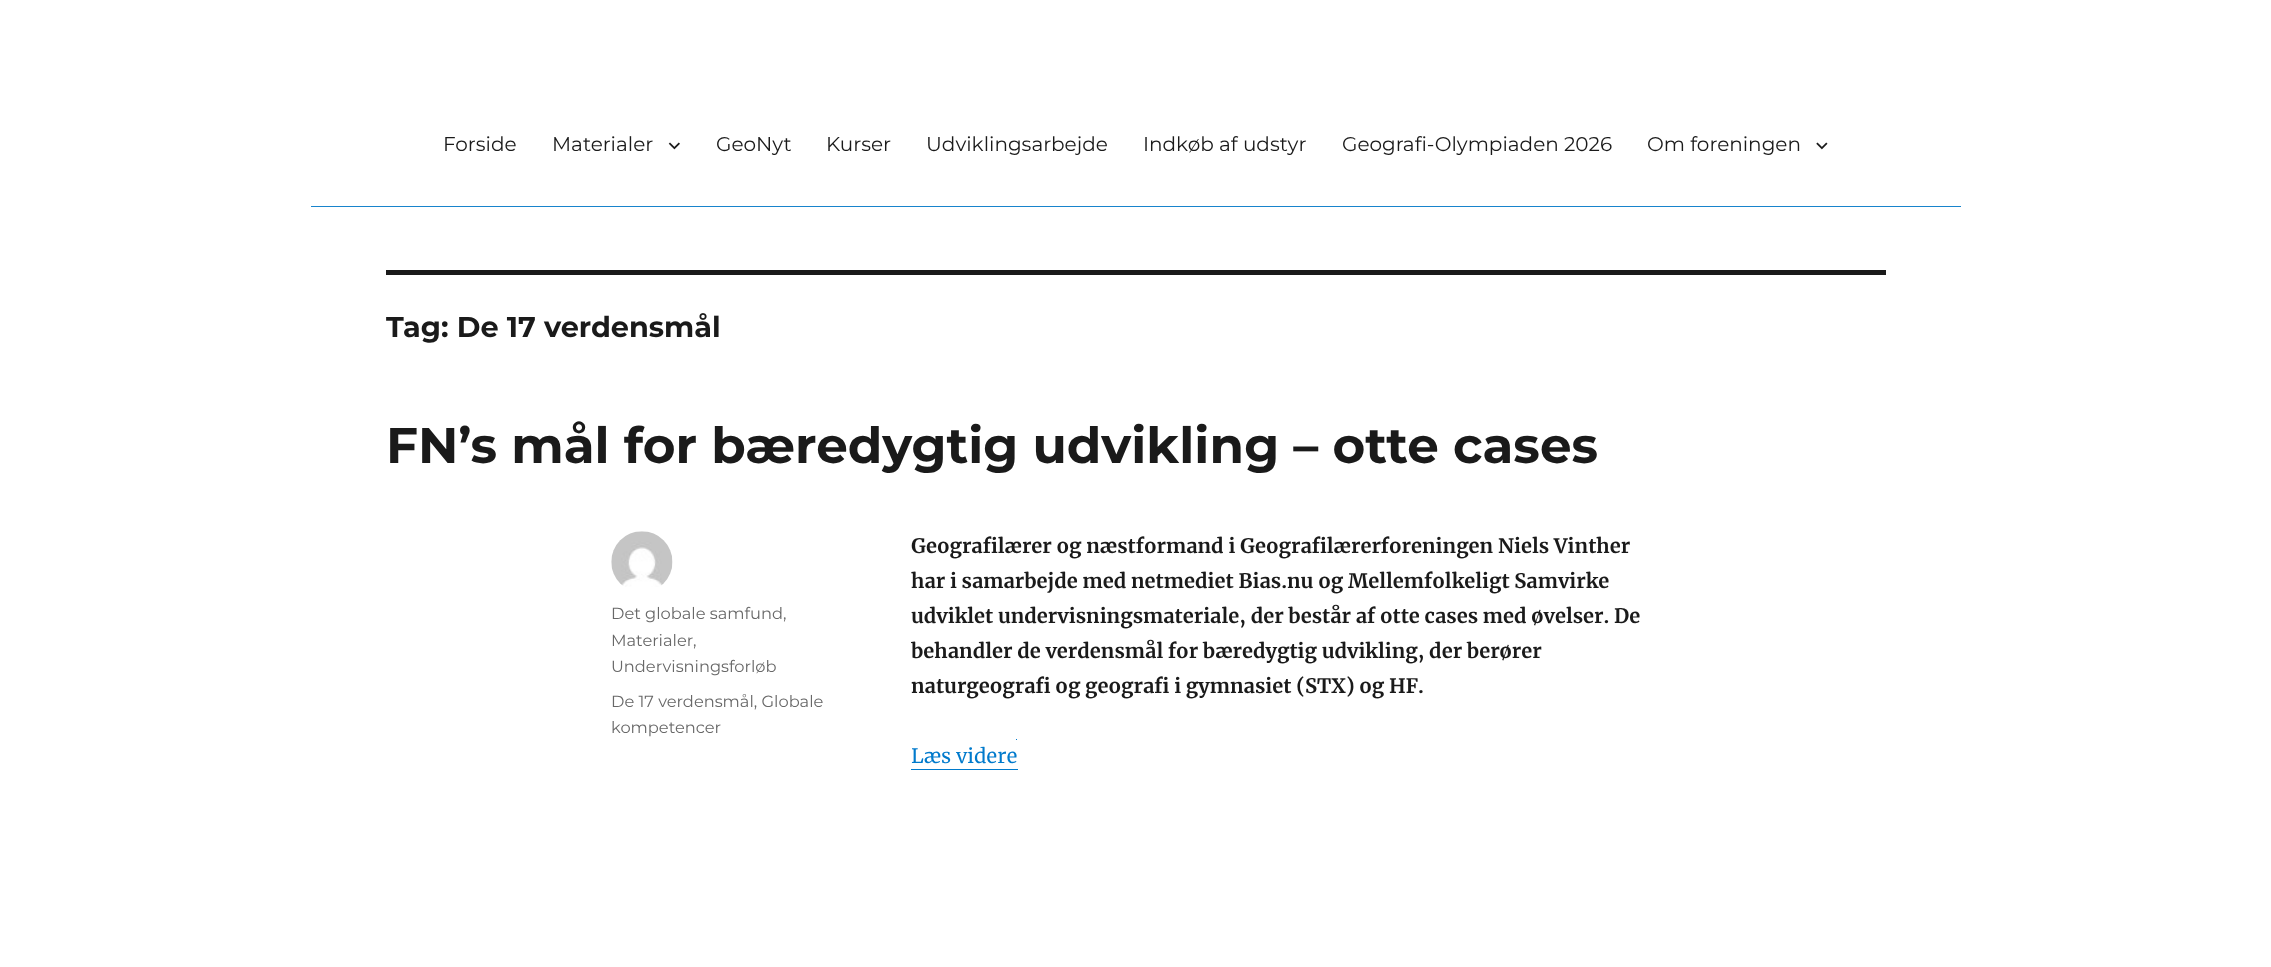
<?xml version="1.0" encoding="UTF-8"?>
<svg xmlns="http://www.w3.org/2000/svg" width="2271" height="967">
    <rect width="100%" height="100%" fill="#FFFFFF"/>
    <rect x="311" y="206" width="1650" height="1" fill="#1884CC"/>
    <text x="443" y="151" font-family="'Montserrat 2'" font-size="20" font-weight="100" fill="#1A1A1A">Forside</text>
    <text x="552" y="151" font-family="'Montserrat 2'" font-size="20" font-weight="100" fill="#1A1A1A">Materialer</text>
    <image x="668" y="142" width="12" height="8" href="img_01.png"/>
    <text x="716" y="151" font-family="'Montserrat 2'" font-size="20" font-weight="100" fill="#1A1A1A">GeoNyt</text>
    <text x="826" y="151" font-family="'Montserrat 2'" font-size="20" font-weight="100" fill="#1A1A1A">Kurser</text>
    <text x="926" y="151" font-family="'Montserrat 2'" font-size="20" font-weight="100" fill="#1A1A1A">Udviklingsarbejde</text>
    <text x="1143" y="151" font-family="'Montserrat 2'" font-size="20" font-weight="100" fill="#1A1A1A">Indkøb af udstyr</text>
    <text x="1342" y="151" font-family="'Montserrat 2'" font-size="20" font-weight="100" fill="#1A1A1A">Geografi-Olympiaden 2026</text>
    <text x="1647" y="151" font-family="'Montserrat 2'" font-size="20" font-weight="100" fill="#1A1A1A">Om foreningen</text>
    <image x="1816" y="142" width="12" height="8" href="img_02.png"/>
    <rect x="386" y="270" width="1500" height="5" fill="#1A1A1A"/>
    <text x="386" y="337" font-family="Montserrat" font-size="28.75" font-weight="100" fill="#1A1A1A">Tag: De 17 verdensmål</text>
    <text x="386" y="463" font-family="Montserrat" font-size="50" font-weight="100" fill="#1A1A1A">FN’s mål for bæredygtig udvikling – otte cases</text>
    <image x="611" y="531" width="62" height="56" href="img_03.png"/>
    <text font-family="'Montserrat 2'" font-size="16.25" font-weight="100" fill="#686868">
        <tspan x="611" y="619">Det globale samfund,</tspan>
        <tspan x="611" y="646">Materialer,</tspan>
        <tspan x="611" y="672">Undervisningsforløb</tspan>
    </text>
    <text font-family="'Montserrat 2'" font-size="16.25" font-weight="100" fill="#686868">
        <tspan x="611" y="707">De 17 verdensmål, Globale</tspan>
        <tspan x="611" y="733">kompetencer</tspan>
    </text>
    <text font-family="Merriweather" font-size="20" font-weight="700" fill="#1A1A1A">
        <tspan x="911" y="553">Geografilærer og næstformand i Geografilærerforeningen Niels Vinther</tspan>
        <tspan x="911" y="588">har i samarbejde med netmediet Bias.nu og Mellemfolkeligt Samvirke</tspan>
        <tspan x="911" y="623">udviklet undervisningsmateriale, der består af otte cases med øvelser. De</tspan>
        <tspan x="911" y="658">behandler de verdensmål for bæredygtig udvikling, der berører</tspan>
        <tspan x="911" y="693">naturgeografi og geografi i gymnasiet (STX) og HF.</tspan>
    </text>
    <text x="911" y="763" font-family="Merriweather" font-size="20" fill="#007ACC">Læs videre</text>
    <path d="M 911 745 V 770 H 1018 V 745 V 769 H 911 Z" fill="#007ACC"/>
    <rect x="1016" y="739" width="1" height="1" fill="#007ACC"/>
</svg>
